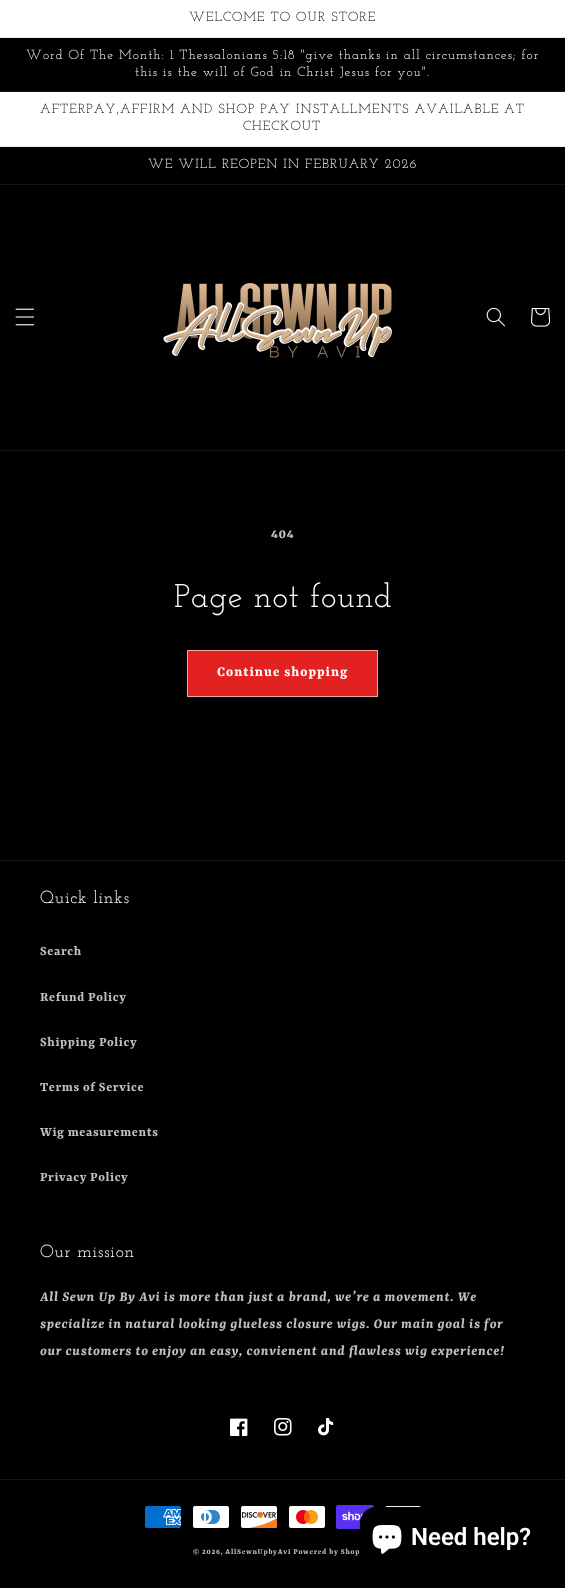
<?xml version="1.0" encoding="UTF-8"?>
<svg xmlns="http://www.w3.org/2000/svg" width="565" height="1588">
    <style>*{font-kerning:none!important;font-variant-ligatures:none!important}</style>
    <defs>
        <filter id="blur1" x="-50%" y="-200%" width="200%" height="500%"><feGaussianBlur stdDeviation="2.5"/></filter>
    </defs>
    <rect width="100%" height="100%" fill="#000000"/>
    <rect x="0" y="0" width="565" height="37" fill="#FFFFFF"/>
    <rect x="0" y="37" width="565" height="1" fill="#EBEBEB"/>
    <text x="189" y="21" font-family="Josefin Slab" font-size="13.2" letter-spacing="1" fill="#000000">WELCOME TO OUR STORE</text>
    <rect x="0" y="91" width="565" height="1" fill="#141414"/>
    <text x="26" y="59" font-family="Josefin Slab" font-size="13.2" letter-spacing="1" fill="#FFFFFF">Word Of The Month: 1 Thessalonians</text>
    <text x="272" y="59" font-family="Josefin Slab" font-size="13.2" letter-spacing="1" fill="#FFFFFF">5:18 "give thanks in all circumstances; for</text>
    <text x="135" y="76" font-family="Josefin Slab" font-size="13.2" letter-spacing="1" fill="#FFFFFF">this is the will of God in Christ Jesus for you".</text>
    <rect x="0" y="92" width="565" height="54" fill="#FFFFFF"/>
    <rect x="0" y="146" width="565" height="1" fill="#EBEBEB"/>
    <text x="40" y="113" font-family="Josefin Slab" font-size="13.2" letter-spacing="1" fill="#000000">AFTERPAY,AFFIRM</text>
    <text x="180" y="113" font-family="Josefin Slab" font-size="13.2" letter-spacing="1" fill="#000000">AND SHOP PAY</text>
    <text x="296" y="113" font-family="Josefin Slab" font-size="13.2" letter-spacing="1" fill="#000000">INSTALLMENTS AVAILABLE</text>
    <text x="504" y="113" font-family="Josefin Slab" font-size="13.2" letter-spacing="1" fill="#000000">AT</text>
    <text x="243" y="130" font-family="Josefin Slab" font-size="13.2" letter-spacing="1" fill="#000000">CHECKOUT</text>
    <rect x="0" y="184" width="565" height="1" fill="#141414"/>
    <text x="148" y="168" font-family="Josefin Slab" font-size="13.2" letter-spacing="1" fill="#FFFFFF">WE WILL REOPEN IN FEBRUARY 2026</text>
    <rect x="0" y="450" width="565" height="1" fill="#141414"/>
    <image x="15" y="308" width="20" height="18" href="img_01.png"/>
    <image x="163" y="283" width="229" height="75" href="img_02.png"/>
    <image x="486" y="307" width="19" height="20" href="img_03.png"/>
    <image x="531" y="308" width="20" height="19" href="img_04.png"/>
    <text x="271" y="538" font-family="Rasa" font-size="15" font-weight="700" letter-spacing="0.6" fill="#BFBFBF">404</text>
    <text x="174" y="607" font-family="Josefin Slab" font-size="33" letter-spacing="0.7" fill="#FFFFFF">Page not found</text>
    <rect x="188" y="651" width="189" height="45" fill="#E22120"/>
    <rect x="187.5" y="650.5" width="190" height="46" fill="none" stroke="#F0A3A3"/>
    <text x="217" y="676" font-family="Rasa" font-size="15" font-weight="700" letter-spacing="1" fill="#FFFFFF">Continue shopping</text>
    <rect x="0" y="860" width="565" height="1" fill="#141414"/>
    <text x="40" y="903" font-family="Josefin Slab" font-size="17.5" letter-spacing="0.7" fill="#FFFFFF">Quick links</text>
    <text x="40" y="955" font-family="Rasa" font-size="14" font-weight="700" letter-spacing="0.6" fill="#BFBFBF">Search</text>
    <text x="40" y="1001" font-family="Rasa" font-size="14" font-weight="700" letter-spacing="0.6" fill="#BFBFBF">Refund Policy</text>
    <text x="40" y="1046" font-family="Rasa" font-size="14" font-weight="700" letter-spacing="0.6" fill="#BFBFBF">Shipping Policy</text>
    <text x="40" y="1091" font-family="Rasa" font-size="14" font-weight="700" letter-spacing="0.6" fill="#BFBFBF">Terms of Service</text>
    <text x="40" y="1136" font-family="Rasa" font-size="14" font-weight="700" letter-spacing="0.6" fill="#BFBFBF">Wig measurements</text>
    <text x="40" y="1181" font-family="Rasa" font-size="14" font-weight="700" letter-spacing="0.6" fill="#BFBFBF">Privacy Policy</text>
    <text x="40" y="1257" font-family="Josefin Slab" font-size="17.5" letter-spacing="0.7" fill="#FFFFFF">Our mission</text>
    <text x="40" y="1301" font-family="Rasa" font-size="15" font-weight="700" font-style="italic" letter-spacing="0.6" fill="#BFBFBF">All Sewn Up By Avi is more than just a brand, we’re</text>
    <text x="373" y="1301" font-family="Rasa" font-size="15" font-weight="700" font-style="italic" letter-spacing="0.6" fill="#BFBFBF">a movement. We</text>
    <text font-family="Rasa" font-size="15" font-weight="700" font-style="italic" letter-spacing="0.6" fill="#BFBFBF">
        <tspan x="40" y="1328">specialize in natural looking glueless closure wigs. Our main goal is for</tspan>
        <tspan x="40" y="1355">our customers to enjoy an easy, convienent and flawless</tspan>
    </text>
    <text x="405" y="1355" font-family="Rasa" font-size="15" font-weight="700" font-style="italic" letter-spacing="0.6" fill="#BFBFBF">wig experience!</text>
    <image x="230" y="1418" width="18" height="18" href="img_05.png"/>
    <image x="274" y="1418" width="18" height="18" href="img_06.png"/>
    <image x="318" y="1418" width="16" height="18" href="img_07.png"/>
    <rect x="0" y="1479" width="565" height="1" fill="#141414"/>
    <image x="145" y="1506" width="36" height="22" href="img_08.png"/>
    <image x="193" y="1506" width="36" height="22" href="img_09.png"/>
    <image x="241" y="1506" width="37" height="22" href="img_10.png"/>
    <image x="289" y="1506" width="36" height="22" href="img_11.png"/>
    <image x="336" y="1505" width="38" height="24" href="img_12.png"/>
    <image x="385" y="1506" width="36" height="1" href="img_13.png"/>
    <text x="193" y="1554" font-family="Rasa" font-size="8.3" font-weight="700" letter-spacing="0.7" fill="#BFBFBF">© 2026, AllSewnUpbyAvi Powered by Shop</text>
    <rect x="360" y="1507" width="183" height="60" rx="16" fill="#000000" fill-opacity="0.15" filter="url(#blur1)"/>
    <rect x="360" y="1507" width="183" height="60" rx="16" fill="#000000"/>
    <image x="372" y="1525" width="30" height="29" href="img_14.png"/>
    <text x="411" y="1545" font-family="Roboto" font-size="24" font-weight="600" fill="#FFFFFF">Need help?</text>
</svg>
